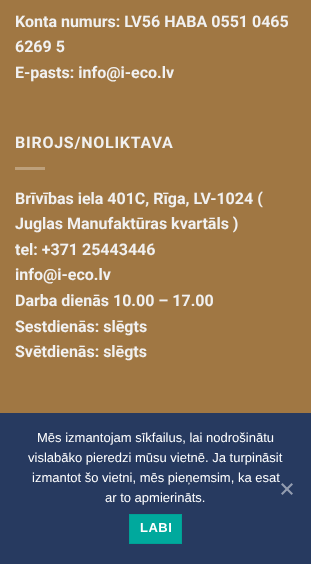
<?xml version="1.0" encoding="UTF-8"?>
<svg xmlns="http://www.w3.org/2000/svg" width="311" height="564">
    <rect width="100%" height="100%" fill="#A07743"/>
    <text font-family="Roboto" font-size="16" font-weight="700" fill="#F1F1F1">
        <tspan x="15" y="27">Konta numurs: LV56 HABA 0551 0465</tspan>
        <tspan x="15" y="52">6269 5</tspan>
        <tspan x="15" y="78">E-pasts: info@i-eco.lv</tspan>
    </text>
    <text x="15" y="148" font-family="Roboto" font-size="16" font-weight="700" letter-spacing="0.75" fill="#F1F1F1">BIROJS/NOLIKTAVA</text>
    <rect x="15" y="167" width="30" height="3" fill="#BDA07B"/>
    <text font-family="Roboto" font-size="16" font-weight="700" fill="#F1F1F1">
        <tspan x="15" y="204">Brīvības iela 401C, Rīga, LV-1024 (</tspan>
        <tspan x="15" y="229">Juglas Manufaktūras kvartāls )</tspan>
        <tspan x="15" y="255">tel: +371 25443446</tspan>
        <tspan x="15" y="280">info@i-eco.lv</tspan>
        <tspan x="15" y="306">Darba dienās 10.00 – 17.00</tspan>
        <tspan x="15" y="332">Sestdienās: slēgts</tspan>
        <tspan x="15" y="357">Svētdienās: slēgts</tspan>
    </text>
    <rect x="0" y="413" width="311" height="151" fill="#273A60"/>
    <text x="37" y="442" font-family="Liberation Sans" font-size="13" fill="#FFFFFF">Mēs izmantojam sīkfailus, lai nodrošinātu</text>
    <text x="28" y="462" font-family="Liberation Sans" font-size="13" fill="#FFFFFF">vislabāko pieredzi mūsu vietnē. Ja turpināsit</text>
    <text x="32" y="482" font-family="Liberation Sans" font-size="13" fill="#FFFFFF">izmantot šo vietni, mēs pieņemsim, ka esat</text>
    <text x="105" y="502" font-family="Liberation Sans" font-size="13" fill="#FFFFFF">ar to apmierināts.</text>
    <path d="M 291.5 483 L 293 484.5 L 282.5 495 L 281 493.5 Z" fill="#939DB0"/>
    <path d="M 281 484.5 L 282.5 483 L 293 493.5 L 291.5 495 Z" fill="#939DB0"/>
    <rect x="129.5" y="514.5" width="52" height="29" fill="#00A99D" stroke="#00A195"/>
    <text x="140" y="532" font-family="Liberation Sans" font-size="13" font-weight="700" letter-spacing="0.5" fill="#FFFFFF">LABI</text>
</svg>
